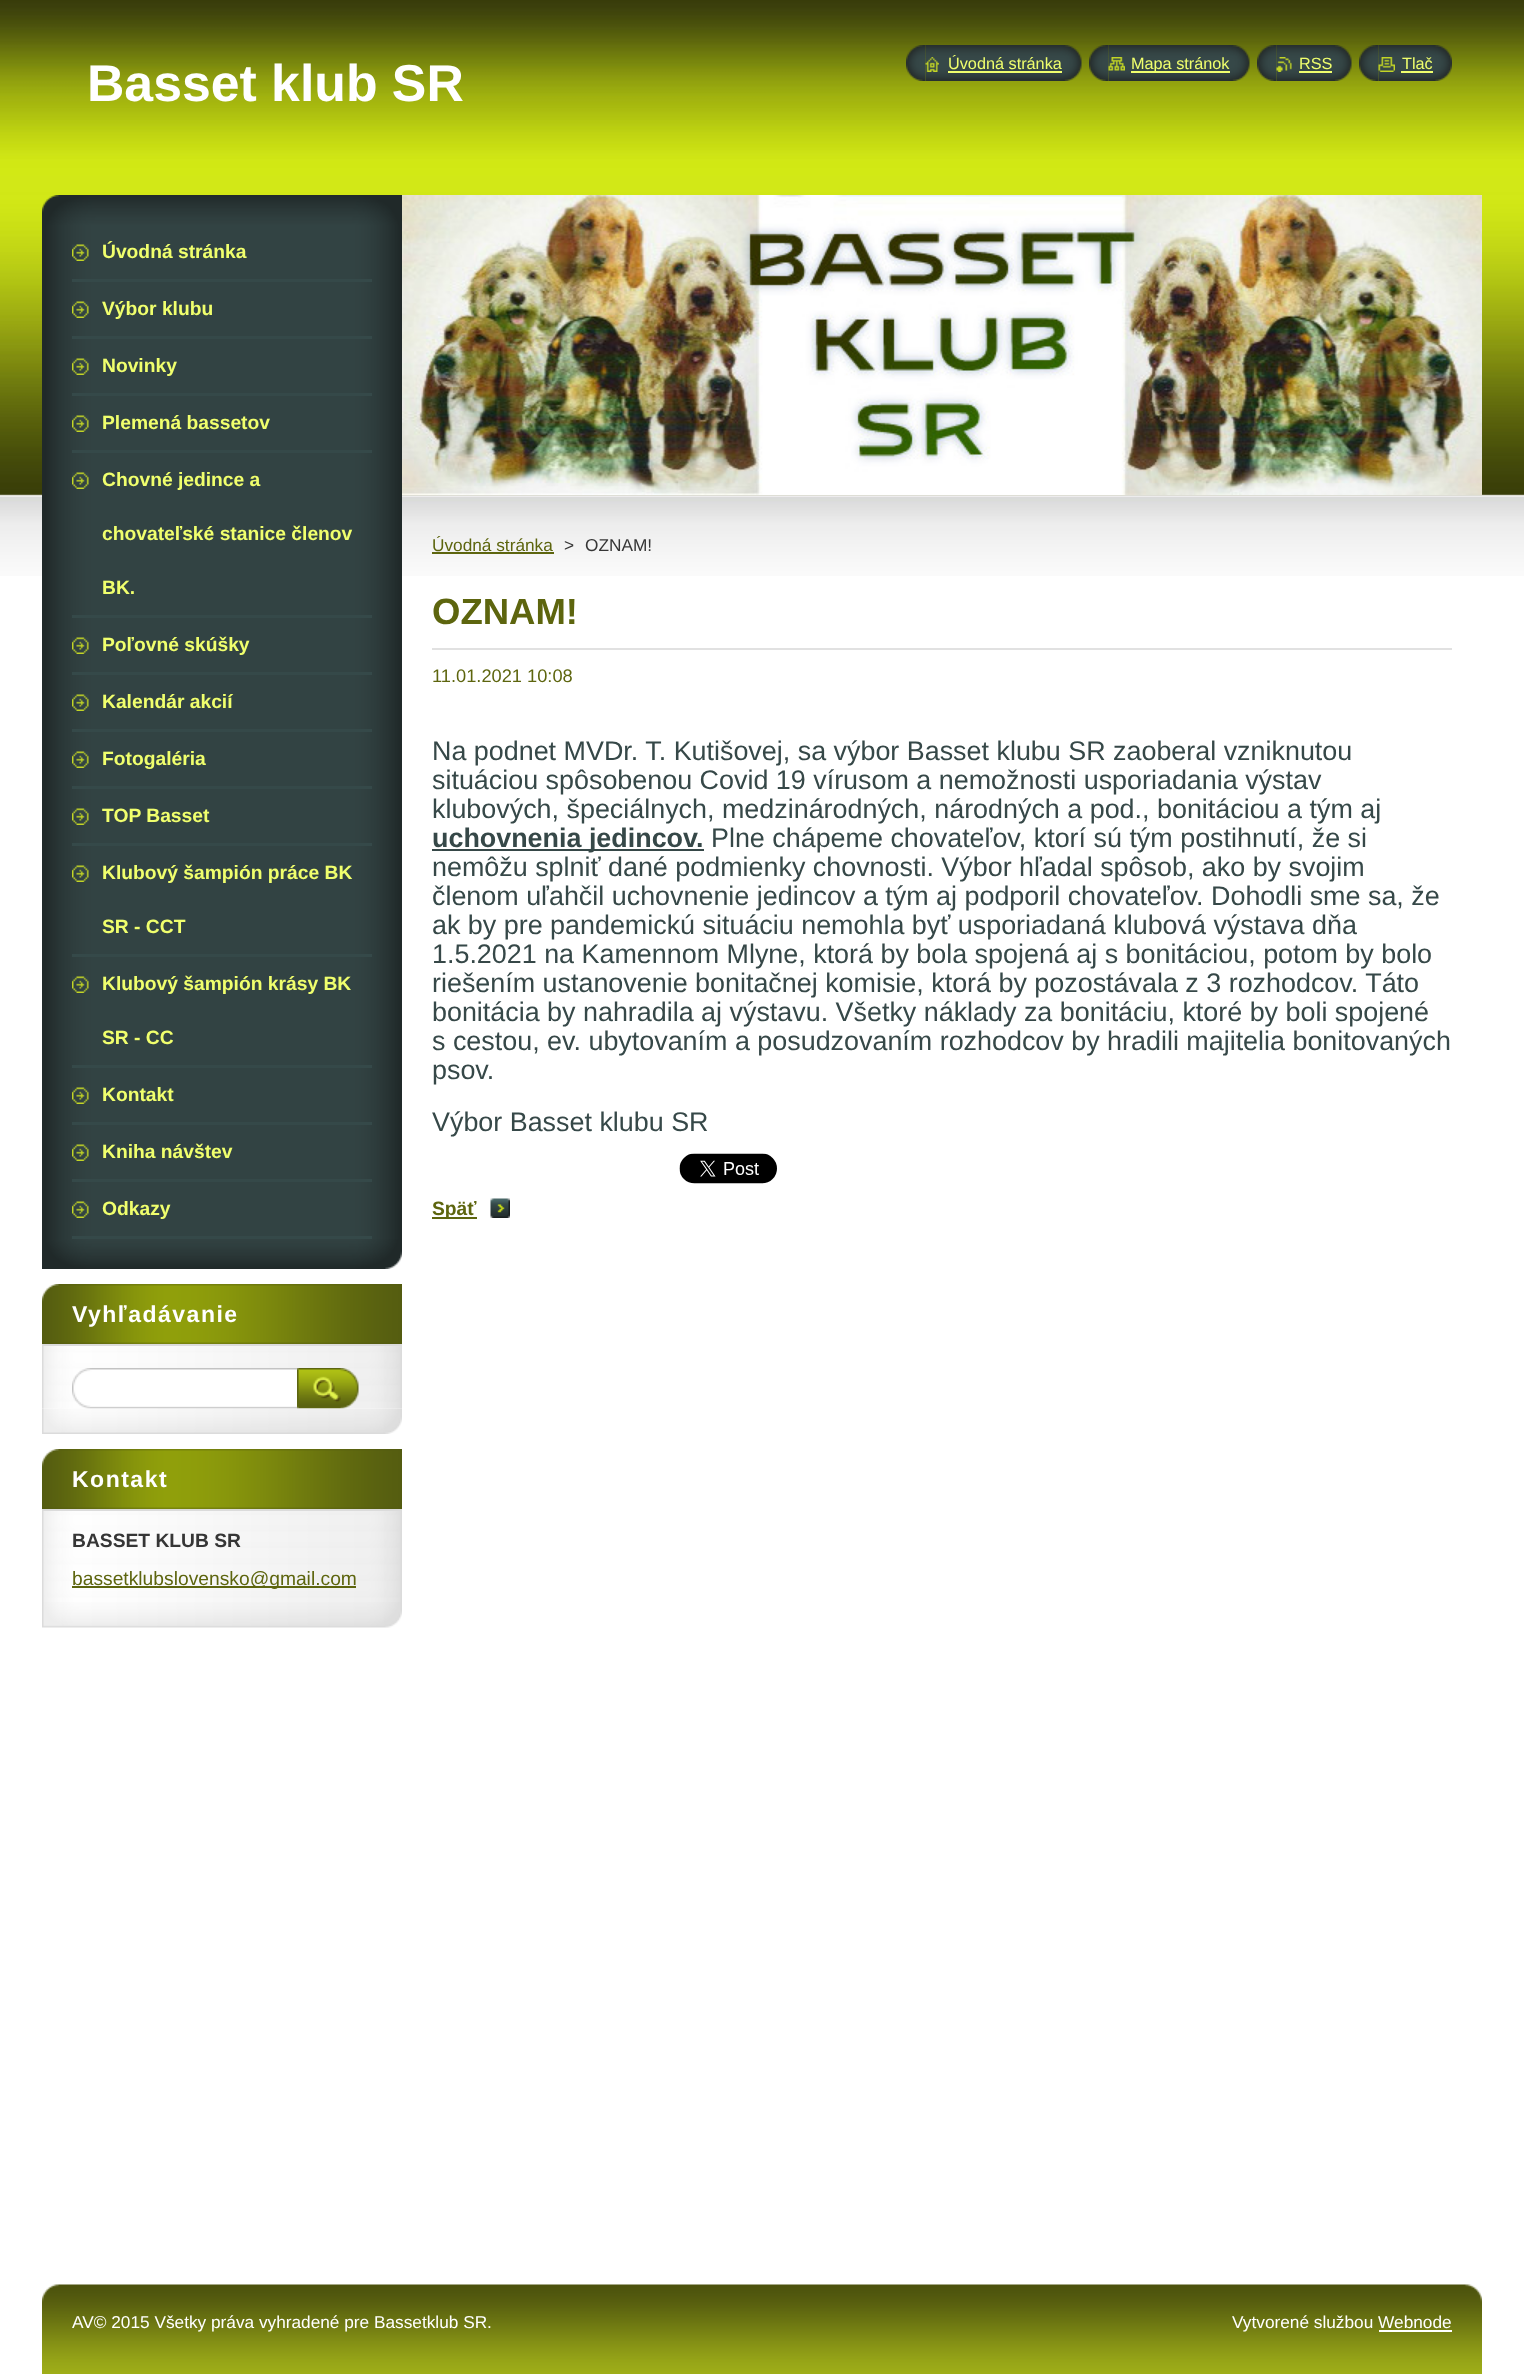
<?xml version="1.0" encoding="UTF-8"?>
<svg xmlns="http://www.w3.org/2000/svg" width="1524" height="2374">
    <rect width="100%" height="100%" fill="#FFFFFF"/>
    <image x="0" y="0" width="1524" height="576" href="img_01.png"/>
    <text x="87" y="101" font-family="Liberation Sans" font-size="51.75" font-weight="700" fill="#FFFFFF">Basset klub SR</text>
    <image x="906" y="45" width="20" height="36" href="img_02.png"/>
    <image x="925" y="45" width="157" height="36" href="img_03.png"/>
    <image x="925" y="57" width="14" height="15" href="img_04.png"/>
    <text x="948" y="69" font-family="Liberation Sans" font-size="16.25" fill="#F0FF6D">Úvodná stránka</text>
    <rect x="948" y="71" width="114" height="2" fill="#F0FF6D"/>
    <image x="1089" y="45" width="20" height="36" href="img_05.png"/>
    <image x="1108" y="45" width="142" height="36" href="img_06.png"/>
    <image x="1108" y="57" width="17" height="14" href="img_07.png"/>
    <rect x="1131" y="71" width="99" height="2" fill="#F0FF6D"/>
    <text x="1131" y="69" font-family="Liberation Sans" font-size="16.25" fill="#F0FF6D">Mapa stránok</text>
    <image x="1257" y="45" width="20" height="36" href="img_08.png"/>
    <image x="1276" y="45" width="76" height="36" href="img_09.png"/>
    <image x="1276" y="57" width="16" height="15" href="img_10.png"/>
    <text x="1299" y="69" font-family="Liberation Sans" font-size="16.25" fill="#F0FF6D">RSS</text>
    <rect x="1299" y="71" width="33" height="2" fill="#F0FF6D"/>
    <image x="1359" y="45" width="20" height="36" href="img_05.png"/>
    <image x="1378" y="45" width="74" height="36" href="img_11.png"/>
    <image x="1378" y="57" width="17" height="15" href="img_12.png"/>
    <text x="1402" y="69" font-family="Liberation Sans" font-size="16.25" fill="#F0FF6D">Tlač</text>
    <rect x="1401" y="71" width="32" height="2" fill="#F0FF6D"/>
    <image x="42" y="195" width="360" height="30" href="img_13.png"/>
    <image x="42" y="1239" width="360" height="30" href="img_14.png"/>
    <image x="42" y="225" width="360" height="1014" href="img_15.png"/>
    <rect x="72" y="279" width="300" height="3" fill="#354949"/>
    <image x="72" y="244" width="17" height="17" href="img_16.png"/>
    <text x="102" y="258" font-family="Liberation Sans" font-size="19.25" font-weight="700" fill="#F0FF6D">Úvodná stránka</text>
    <rect x="72" y="336" width="300" height="3" fill="#354949"/>
    <image x="72" y="301" width="17" height="17" href="img_16.png"/>
    <text x="102" y="315" font-family="Liberation Sans" font-size="19.25" font-weight="700" fill="#F0FF6D">Výbor klubu</text>
    <rect x="72" y="393" width="300" height="3" fill="#354949"/>
    <image x="72" y="358" width="17" height="17" href="img_16.png"/>
    <text x="102" y="372" font-family="Liberation Sans" font-size="19.25" font-weight="700" fill="#F0FF6D">Novinky</text>
    <rect x="72" y="450" width="300" height="3" fill="#354949"/>
    <image x="72" y="415" width="17" height="17" href="img_16.png"/>
    <text x="102" y="429" font-family="Liberation Sans" font-size="19.25" font-weight="700" fill="#F0FF6D">Plemená bassetov</text>
    <rect x="72" y="615" width="300" height="3" fill="#354949"/>
    <image x="72" y="472" width="17" height="17" href="img_16.png"/>
    <text x="102" y="486" font-family="Liberation Sans" font-size="19.25" font-weight="700" fill="#F0FF6D">Chovné jedince a</text>
    <text x="102" y="540" font-family="Liberation Sans" font-size="19.25" font-weight="700" fill="#F0FF6D">chovateľské stanice členov</text>
    <text x="102" y="594" font-family="Liberation Sans" font-size="19.25" font-weight="700" fill="#F0FF6D">BK.</text>
    <rect x="72" y="672" width="300" height="3" fill="#354949"/>
    <image x="72" y="637" width="17" height="17" href="img_16.png"/>
    <text x="102" y="651" font-family="Liberation Sans" font-size="19.25" font-weight="700" fill="#F0FF6D">Poľovné skúšky</text>
    <rect x="72" y="729" width="300" height="3" fill="#354949"/>
    <image x="72" y="694" width="17" height="17" href="img_16.png"/>
    <text x="102" y="708" font-family="Liberation Sans" font-size="19.25" font-weight="700" fill="#F0FF6D">Kalendár akcií</text>
    <rect x="72" y="786" width="300" height="3" fill="#354949"/>
    <image x="72" y="751" width="17" height="17" href="img_16.png"/>
    <text x="102" y="765" font-family="Liberation Sans" font-size="19.25" font-weight="700" fill="#F0FF6D">Fotogaléria</text>
    <rect x="72" y="843" width="300" height="3" fill="#354949"/>
    <image x="72" y="808" width="17" height="17" href="img_16.png"/>
    <text x="102" y="822" font-family="Liberation Sans" font-size="19.25" font-weight="700" fill="#F0FF6D">TOP Basset</text>
    <rect x="72" y="954" width="300" height="3" fill="#354949"/>
    <image x="72" y="865" width="17" height="17" href="img_16.png"/>
    <text x="102" y="879" font-family="Liberation Sans" font-size="19.25" font-weight="700" fill="#F0FF6D">Klubový šampión práce BK</text>
    <text x="102" y="933" font-family="Liberation Sans" font-size="19.25" font-weight="700" fill="#F0FF6D">SR - CCT</text>
    <rect x="72" y="1065" width="300" height="3" fill="#354949"/>
    <image x="72" y="976" width="17" height="17" href="img_16.png"/>
    <text x="102" y="990" font-family="Liberation Sans" font-size="19.25" font-weight="700" fill="#F0FF6D">Klubový šampión krásy BK</text>
    <text x="102" y="1044" font-family="Liberation Sans" font-size="19.25" font-weight="700" fill="#F0FF6D">SR - CC</text>
    <rect x="72" y="1122" width="300" height="3" fill="#354949"/>
    <image x="72" y="1087" width="17" height="17" href="img_16.png"/>
    <text x="102" y="1101" font-family="Liberation Sans" font-size="19.25" font-weight="700" fill="#F0FF6D">Kontakt</text>
    <rect x="72" y="1179" width="300" height="3" fill="#354949"/>
    <image x="72" y="1144" width="17" height="17" href="img_16.png"/>
    <text x="102" y="1158" font-family="Liberation Sans" font-size="19.25" font-weight="700" fill="#F0FF6D">Kniha návštev</text>
    <rect x="72" y="1236" width="300" height="3" fill="#354949"/>
    <image x="72" y="1201" width="17" height="17" href="img_16.png"/>
    <text x="102" y="1215" font-family="Liberation Sans" font-size="19.25" font-weight="700" fill="#F0FF6D">Odkazy</text>
    <image x="42" y="1408" width="360" height="26" href="img_17.png"/>
    <image x="42" y="1284" width="360" height="60" href="img_18.png"/>
    <text x="72" y="1322" font-family="Liberation Sans" font-size="23" font-weight="700" letter-spacing="1.5" fill="#FFFFFF">Vyhľadávanie</text>
    <image x="42" y="1346" width="360" height="63" href="img_19.png"/>
    <rect x="42" y="1344" width="360" height="2" fill="#DBDBDB"/>
    <image x="72" y="1368" width="227" height="41" href="img_20.png"/>
    <image x="297" y="1368" width="62" height="41" href="img_21.png"/>
    <image x="42" y="1602" width="360" height="26" href="img_22.png"/>
    <image x="42" y="1449" width="360" height="60" href="img_18.png"/>
    <text x="72" y="1487" font-family="Liberation Sans" font-size="23" font-weight="700" letter-spacing="1.5" fill="#FFFFFF">Kontakt</text>
    <image x="42" y="1511" width="360" height="91" href="img_23.png"/>
    <rect x="42" y="1509" width="360" height="2" fill="#DBDBDB"/>
    <text x="72" y="1547" font-family="Liberation Sans" font-size="19.25" font-weight="700" fill="#363636">BASSET KLUB SR</text>
    <rect x="72" y="1586" width="284" height="2" fill="#5D650E"/>
    <text x="72" y="1585" font-family="Liberation Sans" font-size="19.25" fill="#5D650E">bassetklubslovensko@gmail.com</text>
    <image x="402" y="195" width="1080" height="300" href="img_24.png"/>
    <text x="432" y="551" font-family="Liberation Sans" font-size="17.25" fill="#5D650E">Úvodná stránka</text>
    <rect x="432" y="552" width="122" height="2" fill="#5D650E"/>
    <text x="564" y="551" font-family="Liberation Sans" font-size="17.25" fill="#363636">&gt;</text>
    <text x="585" y="551" font-family="Liberation Sans" font-size="17.25" fill="#363636">OZNAM!</text>
    <rect x="432" y="648" width="1020" height="2" fill="#E1E1E1"/>
    <text x="432" y="624" font-family="Liberation Sans" font-size="36.5" font-weight="700" fill="#5D650E">OZNAM!</text>
    <text x="432" y="682" font-family="Liberation Sans" font-size="18.25" fill="#5D650E">11.01.2021 10:08</text>
    <text font-family="Liberation Sans" font-size="26.9" fill="#364848">
        <tspan x="432" y="760">Na podnet MVDr. T. Kutišovej, sa výbor Basset klubu SR zaoberal vzniknutou</tspan>
        <tspan x="432" y="789">situáciou spôsobenou Covid 19 vírusom a nemožnosti usporiadania výstav</tspan>
        <tspan x="432" y="818">klubových, špeciálnych, medzinárodných, národných a pod., bonitáciou a tým aj</tspan>
    </text>
    <rect x="432" y="849" width="272" height="2" fill="#364848"/>
    <text x="432" y="847" font-family="Liberation Sans" font-size="26.9" font-weight="700" fill="#364848">uchovnenia jedincov.</text>
    <text x="711" y="847" font-family="Liberation Sans" font-size="26.9" fill="#364848">Plne chápeme chovateľov, ktorí sú tým postihnutí, že si</text>
    <text font-family="Liberation Sans" font-size="26.9" fill="#364848">
        <tspan x="432" y="876">nemôžu splniť dané podmienky chovnosti. Výbor hľadal spôsob, ako by svojim</tspan>
        <tspan x="432" y="905">členom uľahčil uchovnenie jedincov a tým aj podporil chovateľov. Dohodli sme sa, že</tspan>
        <tspan x="432" y="934">ak by pre pandemickú situáciu nemohla byť usporiadaná klubová výstava dňa</tspan>
        <tspan x="432" y="963">1.5.2021 na Kamennom Mlyne, ktorá by bola spojená aj s bonitáciou, potom by bolo</tspan>
        <tspan x="432" y="992">riešením ustanovenie bonitačnej komisie, ktorá by pozostávala z 3 rozhodcov. Táto</tspan>
        <tspan x="432" y="1021">bonitácia by nahradila aj výstavu. Všetky náklady za bonitáciu, ktoré by boli spojené</tspan>
        <tspan x="432" y="1050">s cestou, ev. ubytovaním a posudzovaním rozhodcov by hradili majitelia bonitovaných</tspan>
        <tspan x="432" y="1079">psov.</tspan>
        <tspan x="432" y="1131">Výbor Basset klubu SR</tspan>
    </text>
    <image x="679" y="1153" width="98" height="31" href="img_25.png"/>
    <image x="490" y="1198" width="20" height="20" href="img_26.png"/>
    <rect x="432" y="1217" width="45" height="2" fill="#5D650E"/>
    <text x="432" y="1215" font-family="Liberation Sans" font-size="19.25" font-weight="700" fill="#5D650E">Späť</text>
    <image x="42" y="2284" width="1440" height="90" href="img_27.png"/>
    <text x="72" y="2328" font-family="Liberation Sans" font-size="17.25" fill="#FFFFFF">AV© 2015 Všetky práva vyhradené pre Bassetklub SR.</text>
    <text x="1232" y="2328" font-family="Liberation Sans" font-size="17.25" fill="#FFFFFF">Vytvorené službou Webnode</text>
    <rect x="1379" y="2330" width="73" height="2" fill="#FFFFFF"/>
</svg>
